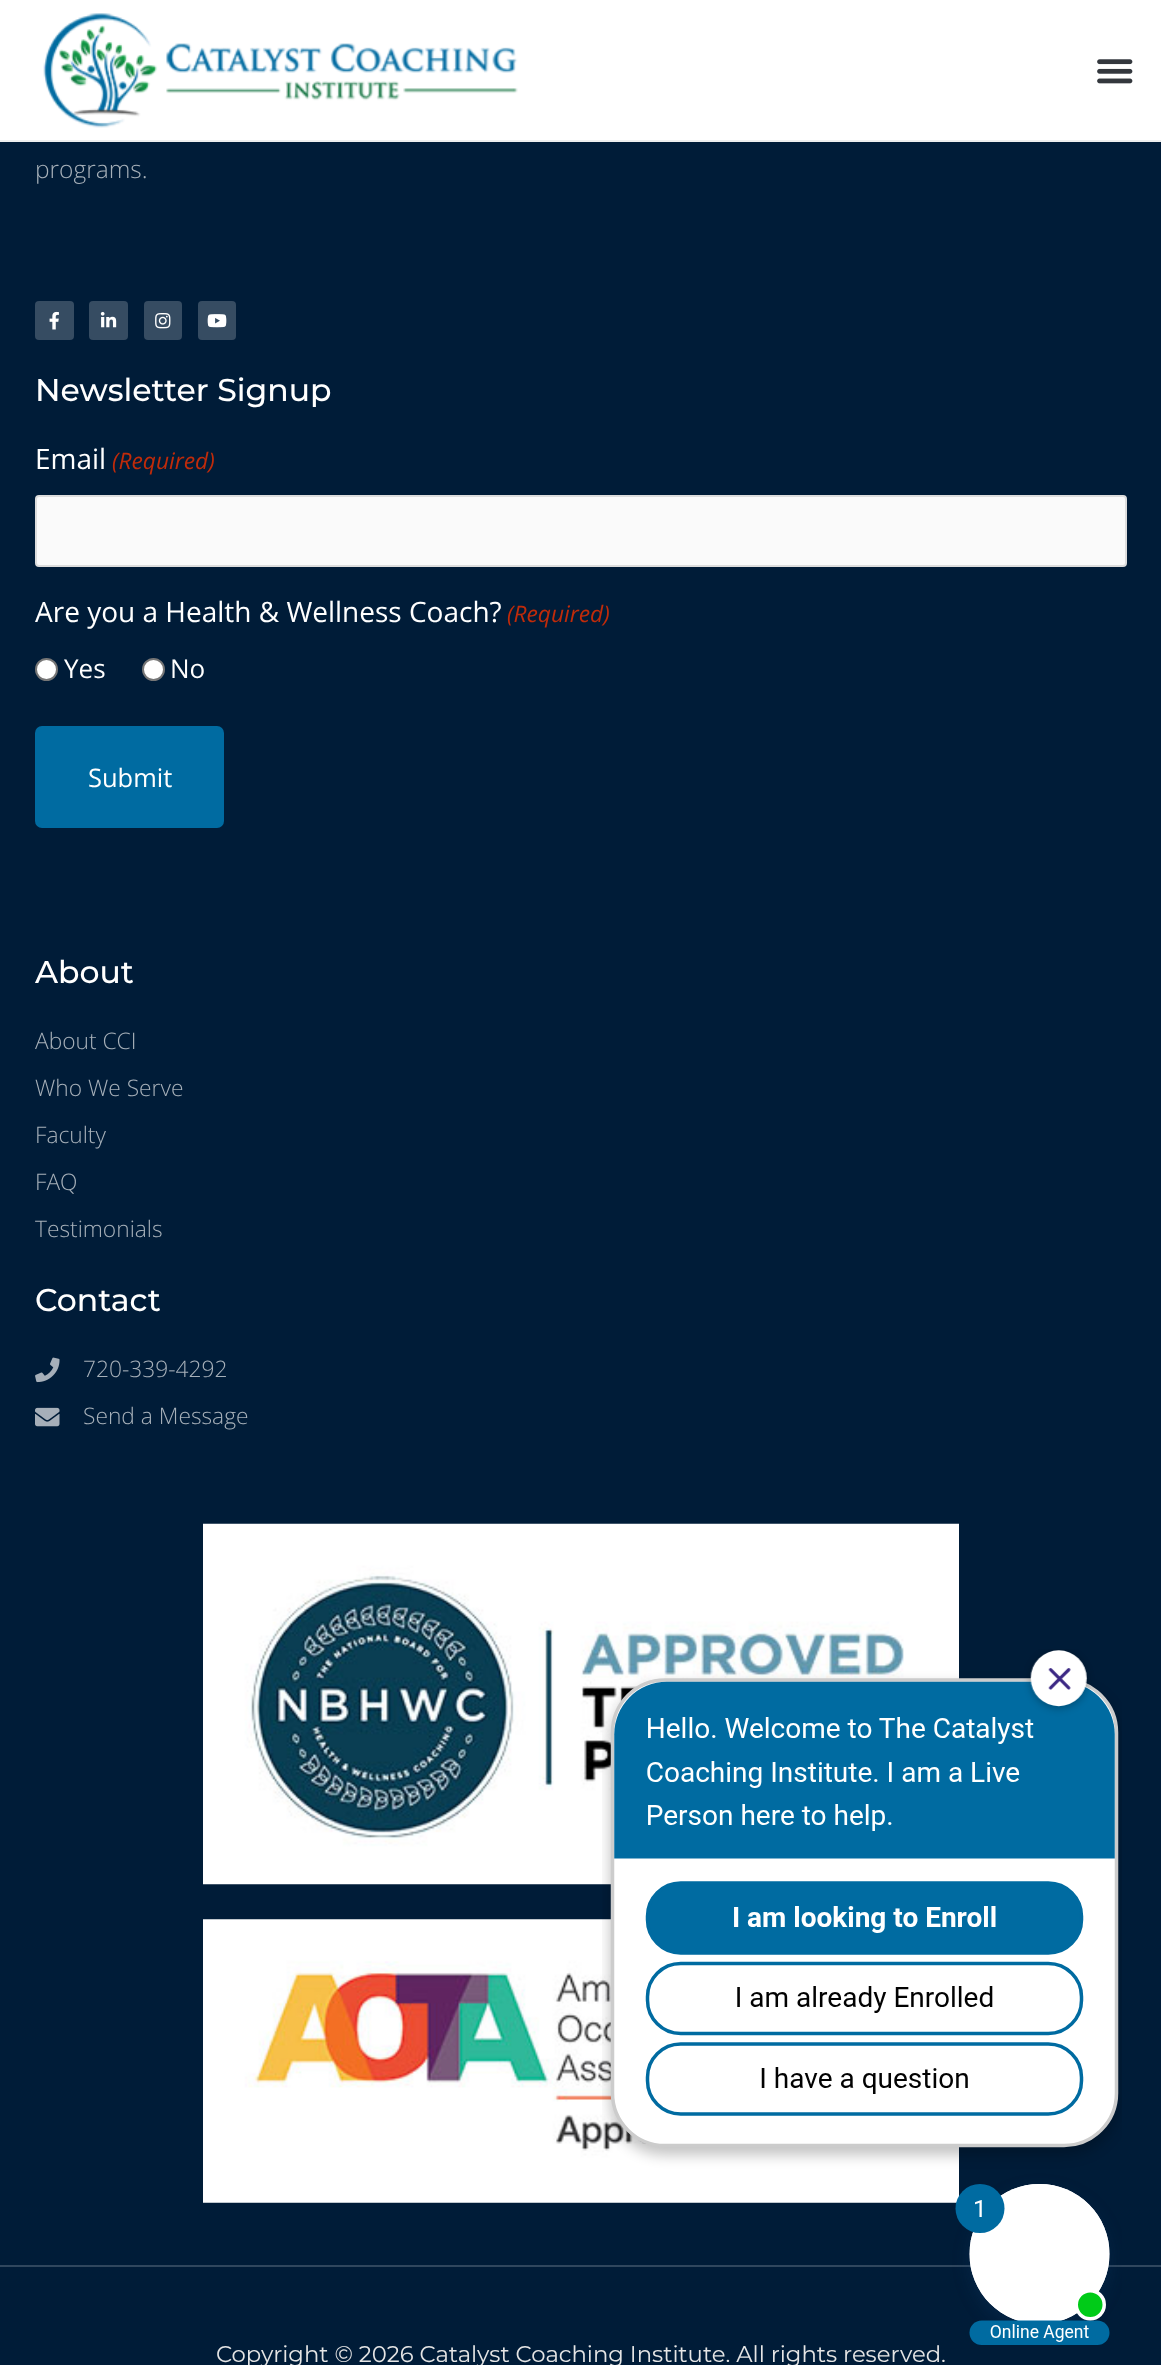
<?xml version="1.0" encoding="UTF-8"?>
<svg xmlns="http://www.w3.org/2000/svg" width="1161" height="2365">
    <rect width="100%" height="100%" fill="#001C38"/>
    <rect x="0" y="0" width="1161" height="140" fill="#FFFFFF"/>
    <rect x="0" y="140" width="1161" height="2" fill="#EEEEEE"/>
    <image x="43" y="13" width="475" height="115" href="img_01.png"/>
    <image x="1097" y="59" width="36" height="25" href="img_02.png"/>
    <text x="35" y="178" font-family="Open Sans" font-size="24.5" font-weight="300" fill="#A6B0B9">programs.</text>
    <rect x="35" y="301" width="39" height="39" rx="4" fill="#364C62"/>
    <image x="49" y="311" width="10" height="19" href="img_03.png"/>
    <rect x="89" y="301" width="39" height="39" rx="4" fill="#364C62"/>
    <image x="100" y="311" width="17" height="17" href="img_04.png"/>
    <rect x="144" y="301" width="38" height="39" rx="4" fill="#364C62"/>
    <image x="155" y="313" width="16" height="16" href="img_05.png"/>
    <rect x="198" y="301" width="38" height="39" rx="4" fill="#364C62"/>
    <image x="207" y="314" width="20" height="14" href="img_06.png"/>
    <text x="35" y="401" font-family="Montserrat" font-size="31.5" font-weight="500" fill="#FFFFFF">Newsletter Signup</text>
    <text x="35" y="469" font-family="Open Sans" font-size="28" fill="#FFFFFF">Email</text>
    <text x="112" y="469" font-family="Open Sans" font-size="22.75" font-style="italic" fill="#C02B0A">(Required)</text>
    <rect x="36" y="496" width="1090" height="70" rx="3" fill="#FAFAFA" stroke="#DDDDDD" stroke-width="2"/>
    <text x="35" y="622" font-family="Open Sans" font-size="28" fill="#FFFFFF">Are you a Health &amp; Wellness Coach?</text>
    <text x="507" y="622" font-family="Open Sans" font-size="22.75" font-style="italic" fill="#C02B0A">(Required)</text>
    <circle cx="46.5" cy="669.5" r="10.5" fill="#FFFFFF" stroke="#767676" stroke-width="2"/>
    <text x="64" y="678" font-family="Open Sans" font-size="26" fill="#FFFFFF">Yes</text>
    <circle cx="153.5" cy="669.5" r="10.5" fill="#FFFFFF" stroke="#767676" stroke-width="2"/>
    <text x="170" y="678" font-family="Open Sans" font-size="26" fill="#FFFFFF">No</text>
    <rect x="35" y="726" width="189" height="102" rx="7" fill="#006BA1"/>
    <text x="88" y="787" font-family="Open Sans" font-size="25.5" fill="#FFFFFF">Submit</text>
    <text x="35" y="983" font-family="Montserrat" font-size="31.5" font-weight="500" fill="#FFFFFF">About</text>
    <text x="35" y="1049" font-family="Open Sans" font-size="22.75" font-weight="300" fill="#A6B0B9">About CCI</text>
    <text x="35" y="1096" font-family="Open Sans" font-size="22.75" font-weight="300" fill="#A6B0B9">Who We Serve</text>
    <text x="35" y="1143" font-family="Open Sans" font-size="22.75" font-weight="300" fill="#A6B0B9">Faculty</text>
    <text x="35" y="1190" font-family="Open Sans" font-size="22.75" font-weight="300" fill="#A6B0B9">FAQ</text>
    <text x="35" y="1237" font-family="Open Sans" font-size="22.75" font-weight="300" fill="#A6B0B9">Testimonials</text>
    <text x="35" y="1311" font-family="Montserrat" font-size="31.5" font-weight="500" fill="#FFFFFF">Contact</text>
    <image x="35" y="1357" width="25" height="26" href="img_07.png"/>
    <text x="83" y="1377" font-family="Open Sans" font-size="22.75" font-weight="300" fill="#A6B0B9">720-339-4292</text>
    <image x="35" y="1407" width="25" height="20" href="img_08.png"/>
    <text x="83" y="1424" font-family="Open Sans" font-size="22.75" font-weight="300" fill="#A6B0B9">Send a Message</text>
    <image x="203" y="1523" width="756" height="362" href="img_09.png"/>
    <image x="203" y="1919" width="756" height="284" href="img_10.png"/>
    <rect x="0" y="2265" width="1161" height="2" fill="#30475E"/>
    <text x="216" y="2362" font-family="Montserrat" font-size="22.75" fill="#E5E5E5">Copyright © 2026 Catalyst Coaching Institute. All rights reserved.</text>
    <image x="602" y="1649" width="520" height="696" href="img_11.png"/>
</svg>
